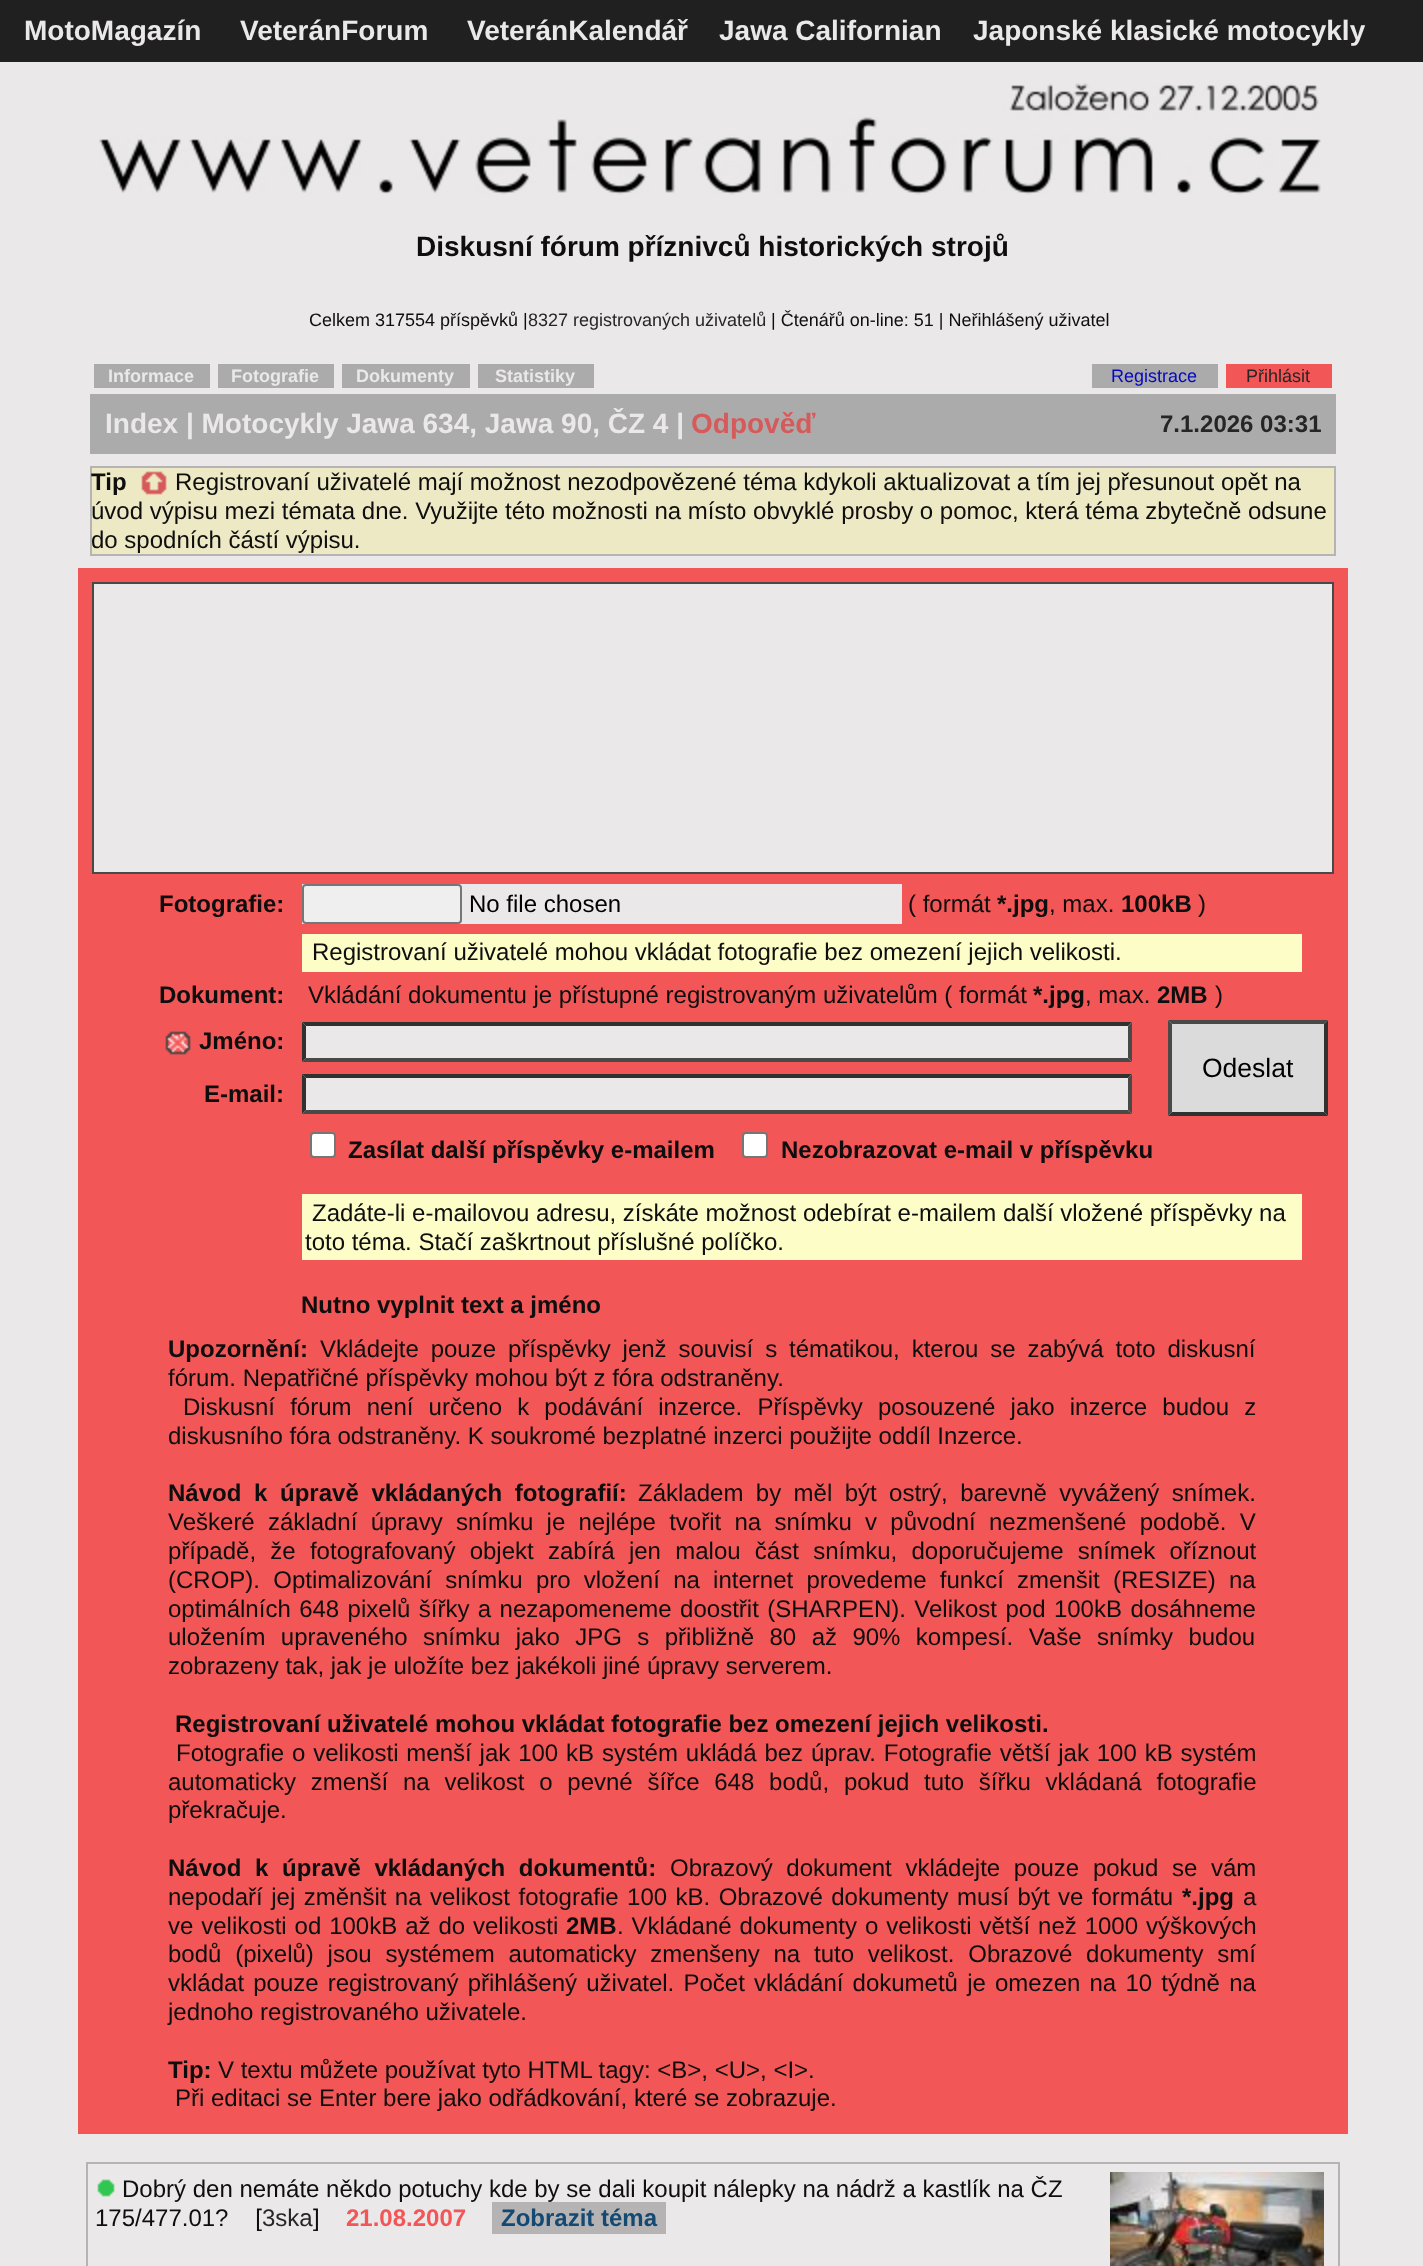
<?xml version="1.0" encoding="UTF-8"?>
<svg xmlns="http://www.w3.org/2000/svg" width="1423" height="2266">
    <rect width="100%" height="100%" fill="#EAE8E8"/>
    <rect x="0" y="0" width="1423" height="62" fill="#202020"/>
    <text x="24" y="40" font-family="Liberation Sans" font-size="28" font-weight="700" fill="#EAE8E8">MotoMagazín</text>
    <text x="240" y="40" font-family="Liberation Sans" font-size="28" font-weight="700" fill="#EAE8E8">VeteránForum</text>
    <text x="467" y="40" font-family="Liberation Sans" font-size="28" font-weight="700" fill="#EAE8E8">VeteránKalendář</text>
    <text x="719" y="40" font-family="Liberation Sans" font-size="28" font-weight="700" fill="#EAE8E8">Jawa Californian</text>
    <text x="973" y="40" font-family="Liberation Sans" font-size="28" font-weight="700" fill="#EAE8E8">Japonské klasické motocykly</text>
    <image x="99" y="83" width="1222" height="112" href="img_01.png"/>
    <text x="416" y="256" font-family="Liberation Sans" font-size="28" font-weight="700" fill="#0E0E0E">Diskusní fórum příznivců historických strojů</text>
    <text x="309" y="326" font-family="Liberation Sans" font-size="18" fill="#0E0E0E">Celkem 317554 příspěvků |</text>
    <text x="528" y="326" font-family="Liberation Sans" font-size="18" fill="#262626">8327 registrovaných uživatelů</text>
    <text x="771" y="326" font-family="Liberation Sans" font-size="18" fill="#0E0E0E">| Čtenářů on-line: 51 | Neřihlášený uživatel</text>
    <rect x="94" y="364" width="116" height="24" fill="#ABABAB"/>
    <text x="108" y="382" font-family="Liberation Sans" font-size="18" font-weight="700" fill="#EAE8E8">Informace</text>
    <rect x="218" y="364" width="116" height="24" fill="#ABABAB"/>
    <text x="231" y="382" font-family="Liberation Sans" font-size="18" font-weight="700" fill="#EAE8E8">Fotografie</text>
    <rect x="342" y="364" width="128" height="24" fill="#ABABAB"/>
    <text x="356" y="382" font-family="Liberation Sans" font-size="18" font-weight="700" fill="#EAE8E8">Dokumenty</text>
    <rect x="478" y="364" width="116" height="24" fill="#ABABAB"/>
    <text x="495" y="382" font-family="Liberation Sans" font-size="18" font-weight="700" fill="#EAE8E8">Statistiky</text>
    <rect x="1092" y="364" width="126" height="24" fill="#ABABAB"/>
    <text x="1111" y="382" font-family="Liberation Sans" font-size="18" fill="#0308C3">Registrace</text>
    <rect x="1226" y="364" width="106" height="24" fill="#F25656"/>
    <text x="1246" y="382" font-family="Liberation Sans" font-size="18" fill="#262626">Přihlásit</text>
    <rect x="90" y="394" width="1246" height="60" fill="#ABABAB"/>
    <text x="105" y="433" font-family="Liberation Sans" font-size="28" font-weight="700" fill="#EAE8E8">Index | Motocykly Jawa 634, Jawa 90, ČZ 4 |</text>
    <text x="691" y="433" font-family="Liberation Sans" font-size="28" font-weight="700" fill="#D65A5A">Odpověď</text>
    <text x="1160" y="432" font-family="Liberation Sans" font-size="24" font-weight="700" fill="#262626">7.1.2026 03:31</text>
    <rect x="92" y="468" width="1242" height="86" fill="#EDE9C5"/>
    <rect x="90" y="466" width="1246" height="2" fill="#B5B3B3"/>
    <rect x="1334" y="466" width="2" height="90" fill="#B5B3B3"/>
    <rect x="90" y="554" width="1246" height="2" fill="#B5B3B3"/>
    <rect x="90" y="466" width="2" height="90" fill="#B5B3B3"/>
    <text x="91" y="490" font-family="Liberation Sans" font-size="24" font-weight="700" fill="#0E0E0E">Tip</text>
    <image x="141" y="471" width="26" height="24" href="img_02.png"/>
    <text x="175" y="490" font-family="Liberation Sans" font-size="24" fill="#0E0E0E">Registrovaní uživatelé mají možnost nezodpovězené téma kdykoli aktualizovat a tím jej přesunout opět na</text>
    <text font-family="Liberation Sans" font-size="24" fill="#0E0E0E">
        <tspan x="91" y="519">úvod výpisu mezi témata dne. Využijte této možnosti na místo obvyklé prosby o pomoc, která téma zbytečně odsune</tspan>
        <tspan x="91" y="548">do spodních částí výpisu.</tspan>
    </text>
    <rect x="78" y="568" width="1270" height="1566" fill="#F25656"/>
    <rect x="93" y="583" width="1240" height="290" fill="#EAE8E8" stroke="#494947" stroke-width="2"/>
    <text x="159" y="912" font-family="Liberation Sans" font-size="24" font-weight="700" fill="#0E0E0E">Fotografie:</text>
    <rect x="302" y="884" width="600" height="40" fill="#EAE8E8"/>
    <rect x="303" y="885" width="158" height="38" rx="3" fill="#EFEFEF" stroke="#767676" stroke-width="2"/>
    <text x="469" y="912" font-family="Liberation Sans" font-size="24" fill="#000000">No file chosen</text>
    <text x="908" y="912" font-family="Liberation Sans" font-size="24" fill="#0E0E0E">( formát</text>
    <text x="997" y="912" font-family="Liberation Sans" font-size="24" font-weight="700" fill="#0E0E0E">*.jpg</text>
    <text x="1049" y="912" font-family="Liberation Sans" font-size="24" fill="#0E0E0E">, max.</text>
    <text x="1121" y="912" font-family="Liberation Sans" font-size="24" font-weight="700" fill="#0E0E0E">100kB</text>
    <text x="1198" y="912" font-family="Liberation Sans" font-size="24" fill="#0E0E0E">)</text>
    <rect x="302" y="934" width="1000" height="38" fill="#FCFDC7"/>
    <text x="312" y="960" font-family="Liberation Sans" font-size="24" fill="#0E0E0E">Registrovaní uživatelé mohou vkládat fotografie bez omezení jejich velikosti.</text>
    <text x="159" y="1003" font-family="Liberation Sans" font-size="24" font-weight="700" fill="#0E0E0E">Dokument:</text>
    <text x="308" y="1003" font-family="Liberation Sans" font-size="24" fill="#0E0E0E">Vkládání dokumentu je přístupné registrovaným uživatelům ( formát</text>
    <text x="1033" y="1003" font-family="Liberation Sans" font-size="24" font-weight="700" fill="#0E0E0E">*.jpg</text>
    <text x="1085" y="1003" font-family="Liberation Sans" font-size="24" fill="#0E0E0E">, max.</text>
    <text x="1157" y="1003" font-family="Liberation Sans" font-size="24" font-weight="700" fill="#0E0E0E">2MB</text>
    <text x="1215" y="1003" font-family="Liberation Sans" font-size="24" fill="#0E0E0E">)</text>
    <image x="165" y="1031" width="26" height="24" href="img_03.png"/>
    <text x="199" y="1049" font-family="Liberation Sans" font-size="24" font-weight="700" fill="#0E0E0E">Jméno:</text>
    <rect x="302" y="1022" width="830" height="40" fill="#EAE8E8"/>
    <path d="M 302 1022 H 1132 L 1128 1026 H 306 Z" fill="#31312F"/>
    <path d="M 1132 1022 V 1062 L 1128 1058 V 1026 Z" fill="#494947"/>
    <path d="M 1132 1062 H 302 L 306 1058 H 1128 Z" fill="#494947"/>
    <path d="M 302 1062 V 1022 L 306 1026 V 1058 Z" fill="#31312F"/>
    <rect x="1168" y="1020" width="160" height="96" fill="#DBDBDB"/>
    <path d="M 1168 1020 H 1328 L 1324 1024 H 1172 Z" fill="#494947"/>
    <path d="M 1328 1020 V 1116 L 1324 1112 V 1024 Z" fill="#31312F"/>
    <path d="M 1328 1116 H 1168 L 1172 1112 H 1324 Z" fill="#31312F"/>
    <path d="M 1168 1116 V 1020 L 1172 1024 V 1112 Z" fill="#494947"/>
    <text x="1202" y="1077" font-family="Liberation Sans" font-size="26.5" fill="#000000">Odeslat</text>
    <text x="204" y="1102" font-family="Liberation Sans" font-size="24" font-weight="700" fill="#0E0E0E">E-mail:</text>
    <rect x="302" y="1074" width="830" height="40" fill="#EAE8E8"/>
    <path d="M 302 1074 H 1132 L 1128 1078 H 306 Z" fill="#31312F"/>
    <path d="M 1132 1074 V 1114 L 1128 1110 V 1078 Z" fill="#494947"/>
    <path d="M 1132 1114 H 302 L 306 1110 H 1128 Z" fill="#494947"/>
    <path d="M 302 1114 V 1074 L 306 1078 V 1110 Z" fill="#31312F"/>
    <rect x="311" y="1133" width="24" height="24" rx="3" fill="#FFFFFF" stroke="#767676" stroke-width="2"/>
    <text x="348" y="1158" font-family="Liberation Sans" font-size="24" font-weight="700" fill="#0E0E0E">Zasílat další příspěvky e-mailem</text>
    <rect x="743" y="1133" width="24" height="24" rx="3" fill="#FFFFFF" stroke="#767676" stroke-width="2"/>
    <text x="781" y="1158" font-family="Liberation Sans" font-size="24" font-weight="700" fill="#0E0E0E">Nezobrazovat e-mail v příspěvku</text>
    <rect x="302" y="1194" width="1000" height="66" fill="#FCFDC7"/>
    <text x="312" y="1221" font-family="Liberation Sans" font-size="24" fill="#0E0E0E">Zadáte-li e-mailovou adresu, získáte možnost odebírat e-mailem další vložené příspěvky na</text>
    <text x="305" y="1250" font-family="Liberation Sans" font-size="24" fill="#0E0E0E">toto téma. Stačí zaškrtnout příslušné políčko.</text>
    <text x="301" y="1313" font-family="Liberation Sans" font-size="24" font-weight="700" fill="#0E0E0E">Nutno vyplnit text a jméno</text>
    <text x="168" y="1357" font-family="Liberation Sans" font-size="24" font-weight="700" fill="#0E0E0E">Upozornění:</text>
    <text x="320" y="1357" word-spacing="5.25" font-family="Liberation Sans" font-size="24" fill="#0E0E0E">Vkládejte pouze příspěvky jenž souvisí s tématikou, kterou se zabývá toto diskusní</text>
    <text x="168" y="1386" font-family="Liberation Sans" font-size="24" fill="#0E0E0E">fórum. Nepatřičné příspěvky mohou být z fóra odstraněny.</text>
    <text x="183" y="1415" word-spacing="8.5" font-family="Liberation Sans" font-size="24" fill="#0E0E0E">Diskusní fórum není určeno k podávání inzerce. Příspěvky posouzené jako inzerce budou z</text>
    <text x="168" y="1444" font-family="Liberation Sans" font-size="24" fill="#0E0E0E">diskusního fóra odstraněny. K soukromé bezplatné inzerci použijte oddíl Inzerce.</text>
    <text x="168" y="1501" word-spacing="6" font-family="Liberation Sans" font-size="24" font-weight="700" fill="#0E0E0E">Návod k úpravě vkládaných fotografií:</text>
    <text x="638" y="1501" word-spacing="5.75" font-family="Liberation Sans" font-size="24" fill="#0E0E0E">Základem by měl být ostrý, barevně vyvážený snímek.</text>
    <text font-family="Liberation Sans" font-size="24" fill="#0E0E0E">
        <tspan x="168" y="1530" word-spacing="6.6">Veškeré základní úpravy snímku je nejlépe tvořit na snímku v původní nezmenšené podobě. V</tspan>
        <tspan x="168" y="1559" word-spacing="7.6">případě, že fotografovaný objekt zabírá jen malou část snímku, doporučujeme snímek oříznout</tspan>
        <tspan x="168" y="1588" word-spacing="6.6">(CROP). Optimalizování snímku pro vložení na internet provedeme funkcí zmenšit (RESIZE) na</tspan>
        <tspan x="168" y="1617" word-spacing="1.75">optimálních 648 pixelů šířky a nezapomeneme doostřit (SHARPEN). Velikost pod 100kB dosáhneme</tspan>
        <tspan x="168" y="1645" word-spacing="8.75">uložením upraveného snímku jako JPG s přibližně 80 až 90% kompesí. Vaše snímky budou</tspan>
        <tspan x="168" y="1674">zobrazeny tak, jak je uložíte bez jakékoli jiné úpravy serverem.</tspan>
    </text>
    <text x="175" y="1732" font-family="Liberation Sans" font-size="24" font-weight="700" fill="#0E0E0E">Registrovaní uživatelé mohou vkládat fotografie bez omezení jejich velikosti.</text>
    <text x="176" y="1761" word-spacing="1.2" font-family="Liberation Sans" font-size="24" fill="#0E0E0E">Fotografie o velikosti menší jak 100 kB systém ukládá bez úprav. Fotografie větší jak 100 kB systém</text>
    <text font-family="Liberation Sans" font-size="24" fill="#0E0E0E">
        <tspan x="168" y="1790" word-spacing="8.1">automaticky zmenší na velikost o pevné šířce 648 bodů, pokud tuto šířku vkládaná fotografie</tspan>
        <tspan x="168" y="1818">překračuje.</tspan>
    </text>
    <text x="168" y="1876" word-spacing="7" font-family="Liberation Sans" font-size="24" font-weight="700" fill="#0E0E0E">Návod k úpravě vkládaných dokumentů:</text>
    <text x="670" y="1876" word-spacing="7" font-family="Liberation Sans" font-size="24" fill="#0E0E0E">Obrazový dokument vkládejte pouze pokud se vám</text>
    <text x="168" y="1905" word-spacing="1.8" font-family="Liberation Sans" font-size="24" fill="#0E0E0E">nepodaří jej změnšit na velikost fotografie 100 kB. Obrazové dokumenty musí být ve formátu</text>
    <text x="1182" y="1905" font-family="Liberation Sans" font-size="24" font-weight="700" fill="#0E0E0E">*.jpg</text>
    <text x="1243" y="1905" font-family="Liberation Sans" font-size="24" fill="#0E0E0E">a</text>
    <text x="168" y="1934" word-spacing="1.25" font-family="Liberation Sans" font-size="24" fill="#0E0E0E">ve velikosti od 100kB až do velikosti</text>
    <text x="566" y="1934" font-family="Liberation Sans" font-size="24" font-weight="700" fill="#0E0E0E">2MB</text>
    <text x="617" y="1934" word-spacing="1.25" font-family="Liberation Sans" font-size="24" fill="#0E0E0E">. Vkládané dokumenty o velikosti větší než 1000 výškových</text>
    <text font-family="Liberation Sans" font-size="24" fill="#0E0E0E">
        <tspan x="168" y="1962" word-spacing="7.1">bodů (pixelů) jsou systémem automaticky zmenšeny na tuto velikost. Obrazové dokumenty smí</tspan>
        <tspan x="168" y="1991" word-spacing="2.5">vkládat pouze registrovaný přihlášený uživatel. Počet</tspan>
    </text>
    <text x="754" y="1991" word-spacing="2.5" font-family="Liberation Sans" font-size="24" fill="#0E0E0E">vkládání dokumetů je omezen na 10 týdně na</text>
    <text x="168" y="2020" font-family="Liberation Sans" font-size="24" fill="#0E0E0E">jednoho registrovaného uživatele.</text>
    <text x="168" y="2078" font-family="Liberation Sans" font-size="24" font-weight="700" fill="#0E0E0E">Tip:</text>
    <text x="218" y="2078" font-family="Liberation Sans" font-size="24" fill="#0E0E0E">V textu můžete používat tyto HTML tagy: &lt;B&gt;, &lt;U&gt;, &lt;I&gt;.</text>
    <text x="175" y="2106" font-family="Liberation Sans" font-size="24" fill="#0E0E0E">Při editaci se Enter bere jako odřádkování, které se zobrazuje.</text>
    <rect x="86" y="2162" width="1254" height="2" fill="#B5B3B3"/>
    <rect x="1338" y="2162" width="2" height="104" fill="#B5B3B3"/>
    <rect x="86" y="2162" width="2" height="104" fill="#B5B3B3"/>
    <image x="97" y="2179" width="18" height="18" href="img_04.png"/>
    <text x="122" y="2197" font-family="Liberation Sans" font-size="24" fill="#0E0E0E">Dobrý den nemáte někdo potuchy kde by se dali koupit nálepky na nádrž a kastlík na ČZ</text>
    <image x="1110" y="2172" width="214" height="94" href="img_05.png"/>
    <text x="95" y="2226" font-family="Liberation Sans" font-size="24" fill="#0E0E0E" xml:space="preserve">175/477.01?    [</text>
    <text x="262" y="2226" font-family="Liberation Sans" font-size="24" fill="#262626">3ska</text>
    <text x="313" y="2226" font-family="Liberation Sans" font-size="24" fill="#0E0E0E">]</text>
    <text x="346" y="2226" font-family="Liberation Sans" font-size="24" font-weight="700" fill="#F25656">21.08.2007</text>
    <rect x="492" y="2202" width="174" height="32" fill="#B5B3B3"/>
    <text x="501" y="2226" font-family="Liberation Sans" font-size="24" font-weight="700" fill="#134973">Zobrazit téma</text>
</svg>
